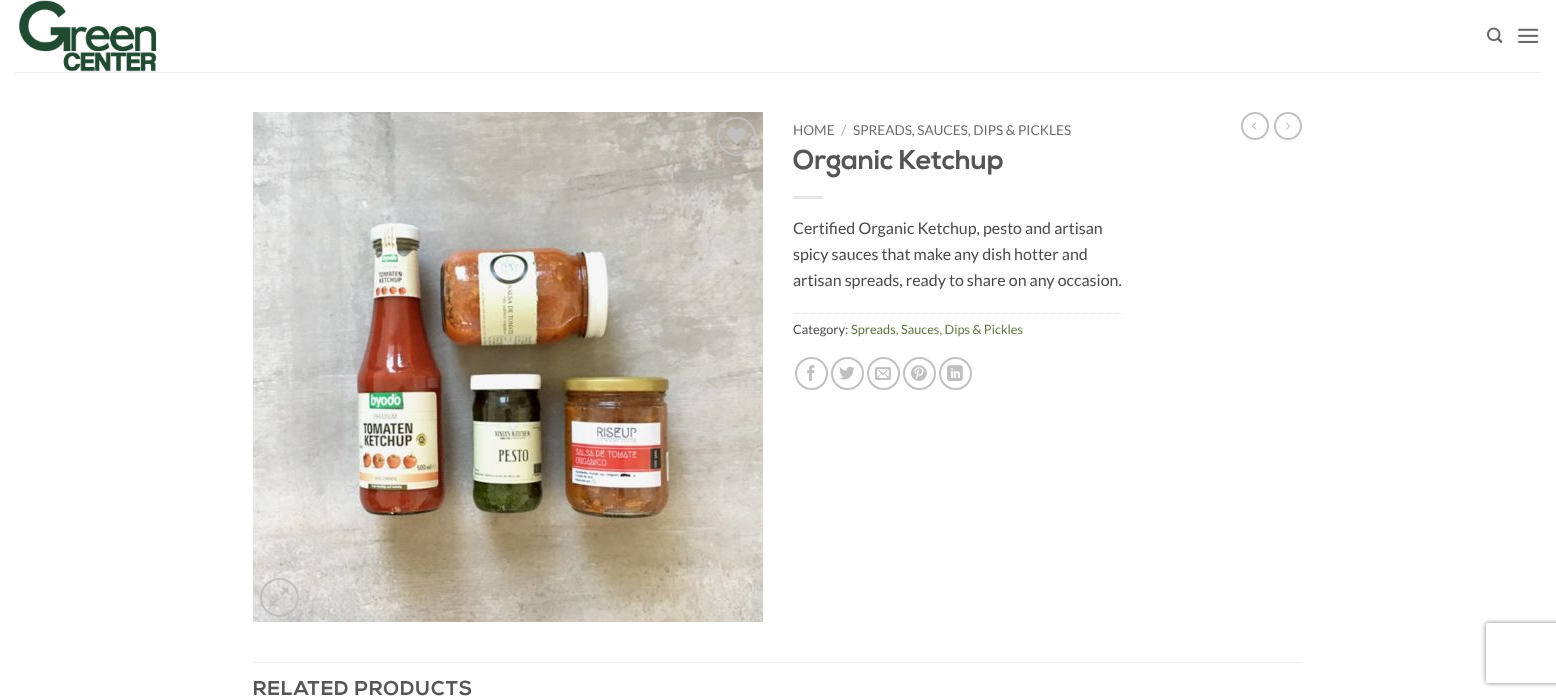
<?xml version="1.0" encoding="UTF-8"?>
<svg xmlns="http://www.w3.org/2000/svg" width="1556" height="697">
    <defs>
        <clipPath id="clip1"><path d="M 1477 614 H 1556 V 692 H 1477 Z M 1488 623 H 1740 C 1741 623 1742 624 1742 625 V 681 C 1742 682 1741 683 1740 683 H 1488 C 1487 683 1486 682 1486 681 V 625 C 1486 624 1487 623 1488 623 Z" clip-rule="evenodd"/></clipPath>
        <filter id="blur1" x="-50%" y="-200%" width="200%" height="500%"><feGaussianBlur stdDeviation="2.5"/></filter>
    </defs>
    <rect width="100%" height="100%" fill="#FFFFFF"/>
    <image x="19" y="0" width="137" height="72" href="img_01.png"/>
    <image x="1487" y="27" width="16" height="16" href="img_02.png"/>
    <image x="1518" y="28" width="21" height="15" href="img_03.png"/>
    <rect x="15" y="72" width="1526" height="1" fill="#EDEDED"/>
    <image x="253" y="112" width="510" height="510" href="img_04.png"/>
    <circle cx="736.5" cy="136.5" r="18.5" fill="none" stroke="#C0C0C0" stroke-width="2"/>
    <image x="727" y="128" width="19" height="16" href="img_05.png"/>
    <circle cx="279.5" cy="597.5" r="18.5" fill="none" stroke="#C0C0C0" stroke-width="2"/>
    <image x="270" y="587" width="19" height="19" href="img_06.png"/>
    <text x="793" y="135" font-family="Lato" font-size="13.6" fill="#6E6E6E">HOME</text>
    <text x="841" y="135" font-family="Lato" font-size="13.6" fill="#B2B2B2">/</text>
    <text x="853" y="135" font-family="Lato" font-size="13.6" fill="#6E6E6E">SPREADS, SAUCES, DIPS &amp; PICKLES</text>
    <text x="793" y="169" font-family="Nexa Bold" font-size="27.25" font-weight="700" fill="#555555">Organic Ketchup</text>
    <rect x="793" y="196" width="30" height="3" fill="#E6E6E6"/>
    <text font-family="Lato" font-size="16" fill="#4A4A4A">
        <tspan x="793" y="234">Certified Organic Ketchup, pesto and artisan</tspan>
        <tspan x="793" y="260">spicy sauces that make any dish hotter and</tspan>
        <tspan x="793" y="286">artisan spreads, ready to share on any occasion.</tspan>
    </text>
    <path d="M 793 313.5 H 1123" fill="none" stroke="#DDDDDD" stroke-dasharray="1 1"/>
    <text x="793" y="334" font-family="Lato" font-size="12.75" fill="#4A4A4A">Category:</text>
    <text x="851" y="334" font-family="Lato" font-size="12.75" fill="#5E7944">Spreads, Sauces, Dips &amp; Pickles</text>
    <circle cx="811.5" cy="373.5" r="15.5" fill="none" stroke="#C0C0C0" stroke-width="2"/>
    <image x="807" y="365" width="8" height="16" href="img_07.png"/>
    <circle cx="847.5" cy="373.5" r="15.5" fill="none" stroke="#C0C0C0" stroke-width="2"/>
    <image x="839" y="366" width="16" height="14" href="img_08.png"/>
    <circle cx="883.5" cy="373.5" r="15.5" fill="none" stroke="#C0C0C0" stroke-width="2"/>
    <image x="875" y="367" width="16" height="13" href="img_09.png"/>
    <circle cx="919.5" cy="373.5" r="15.5" fill="none" stroke="#C0C0C0" stroke-width="2"/>
    <image x="911" y="365" width="16" height="16" href="img_10.png"/>
    <circle cx="955.5" cy="373.5" r="15.5" fill="none" stroke="#C0C0C0" stroke-width="2"/>
    <image x="947" y="365" width="16" height="16" href="img_11.png"/>
    <circle cx="1255" cy="126" r="13" fill="none" stroke="#C0C0C0" stroke-width="2"/>
    <image x="1252" y="122" width="5" height="8" href="img_12.png"/>
    <circle cx="1288" cy="126" r="13" fill="none" stroke="#C0C0C0" stroke-width="2"/>
    <image x="1286" y="122" width="4" height="8" href="img_13.png"/>
    <rect x="253" y="662" width="1050" height="1" fill="#ECECEC"/>
    <text x="253" y="695" font-family="Nexa Bold" font-size="20" font-weight="700" letter-spacing="1" fill="#555555">RELATED PRODUCTS</text>
    <g clip-path="url(#clip1)">
        <rect x="1486" y="623" width="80" height="60" rx="2" fill="#808080" filter="url(#blur1)"/>
    </g>
</svg>
